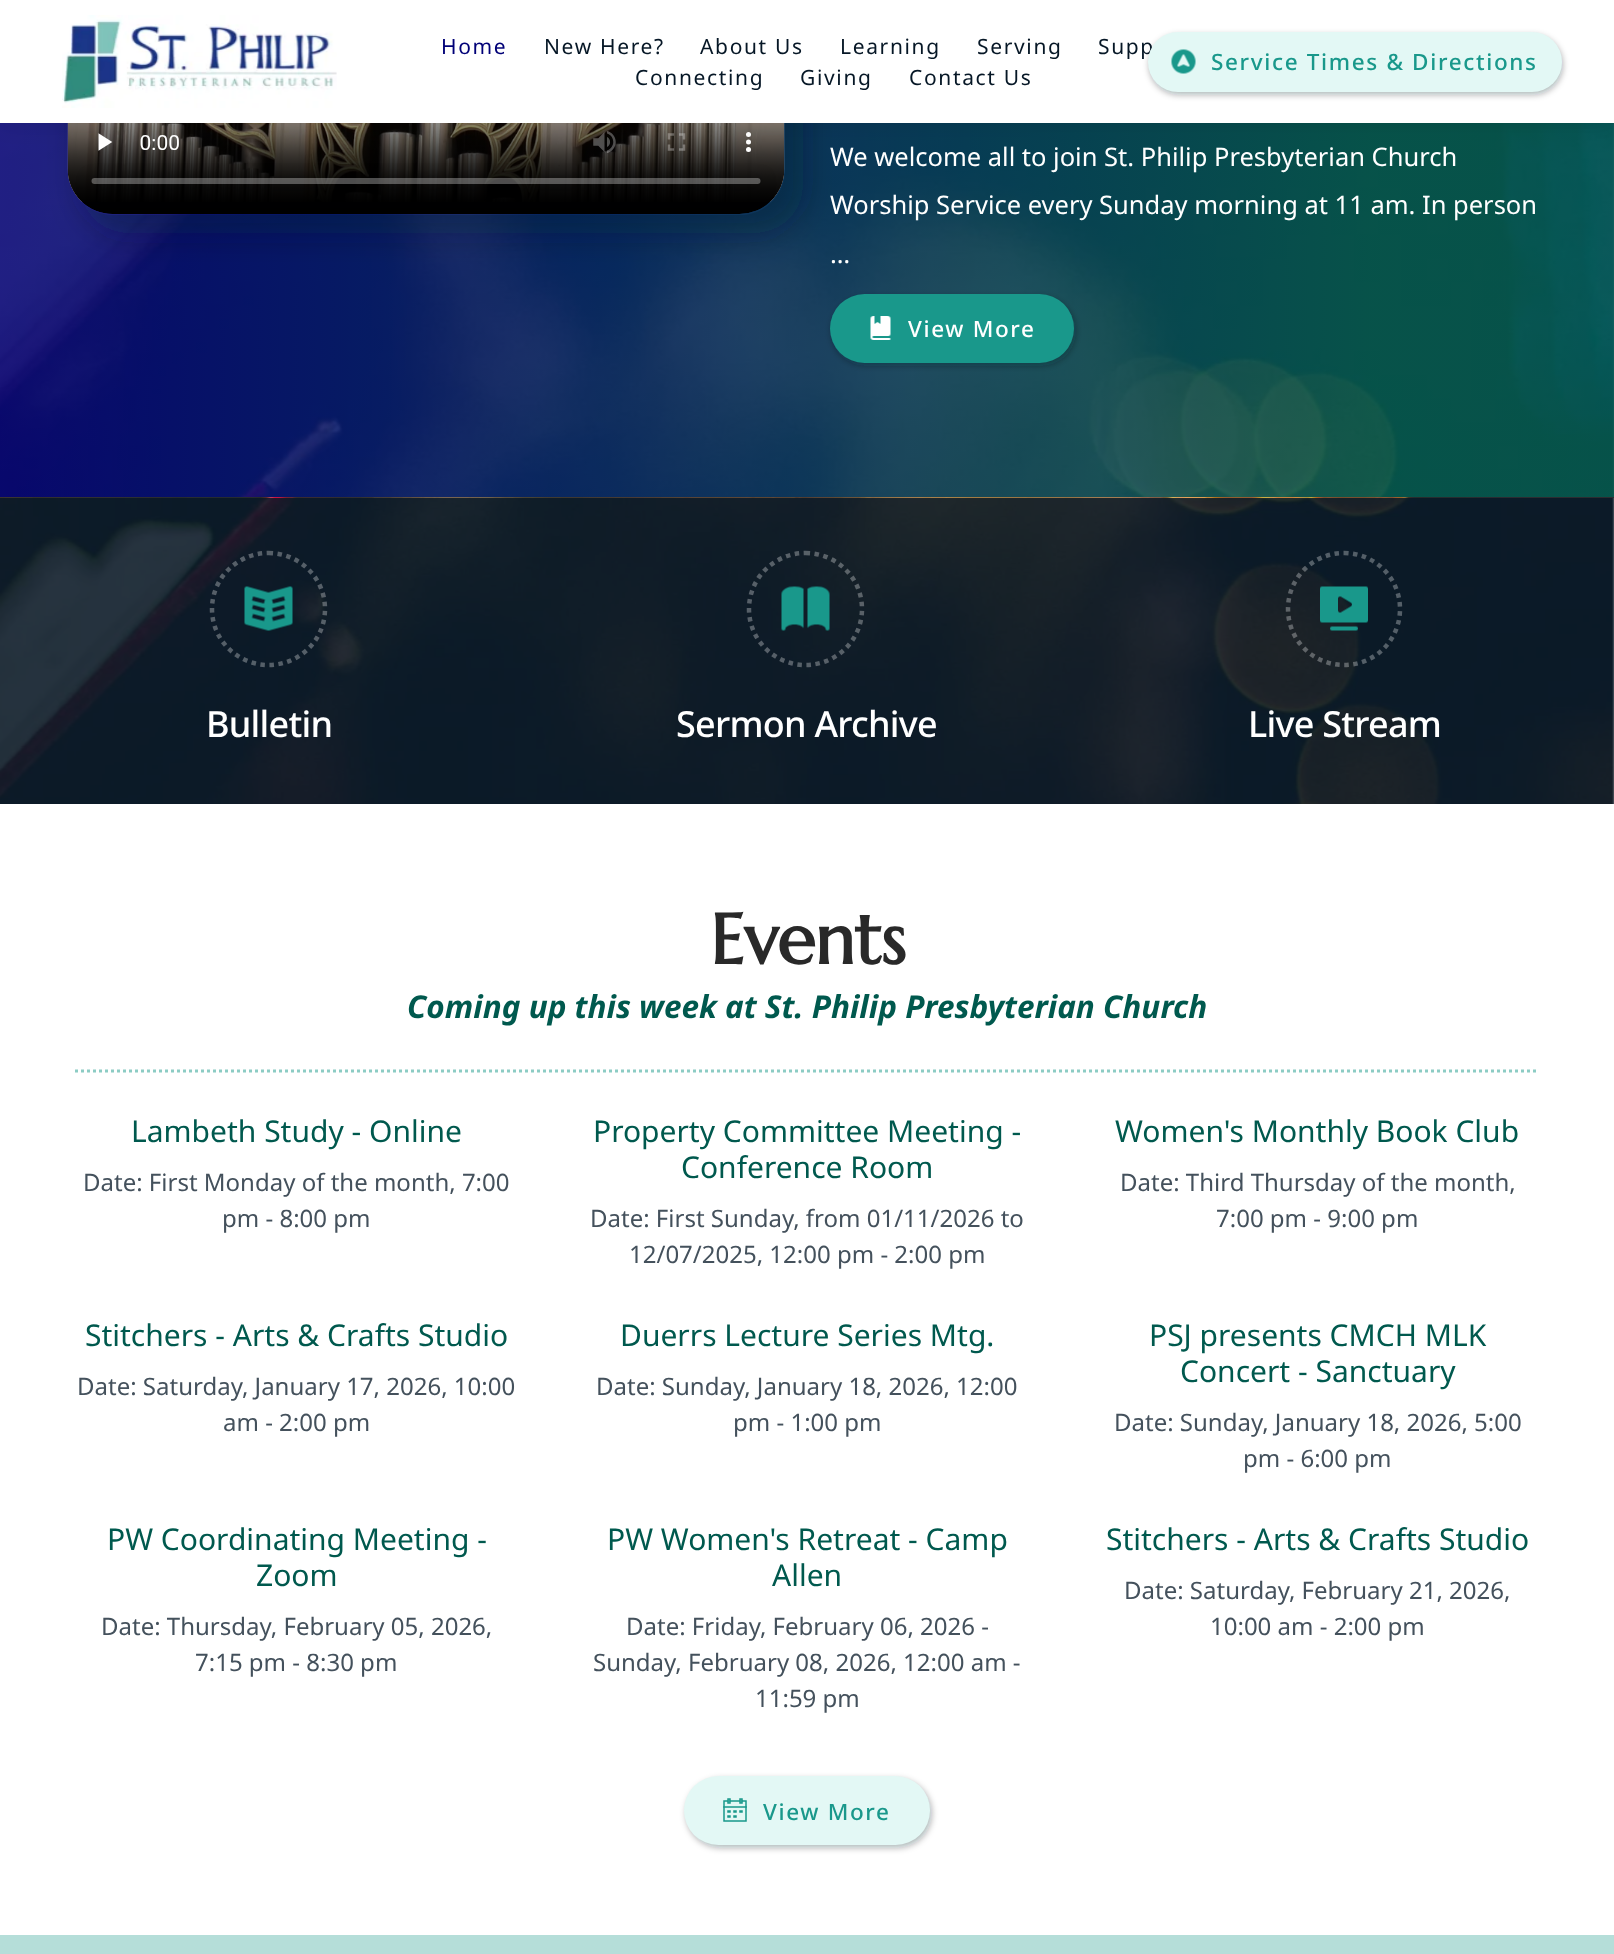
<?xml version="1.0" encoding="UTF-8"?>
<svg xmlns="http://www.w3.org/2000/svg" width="1614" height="1954">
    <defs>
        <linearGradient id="g1" gradientUnits="userSpaceOnUse" x1="0" y1="13" x2="1614" y2="13"><stop offset="0" stop-color="#000077" stop-opacity="0.85"/><stop offset="0.85" stop-color="#00594E" stop-opacity="0.85"/></linearGradient>
        <clipPath id="clip1"><path d="M 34 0 H 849 V 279 H 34 Z M 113 -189 H 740 C 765 -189 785 -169 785 -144 V 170 C 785 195 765 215 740 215 H 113 C 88 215 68 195 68 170 V -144 C 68 -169 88 -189 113 -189 Z" clip-rule="evenodd"/></clipPath>
        <filter id="blur1" x="-50%" y="-200%" width="200%" height="500%"><feGaussianBlur stdDeviation="15"/></filter>
        <filter id="blur2" x="-50%" y="-200%" width="200%" height="500%"><feGaussianBlur stdDeviation="11"/></filter>
        <filter id="blur3" x="-50%" y="-200%" width="200%" height="500%"><feGaussianBlur stdDeviation="3"/></filter>
    </defs>
    <rect width="100%" height="100%" fill="#FFFFFF"/>
    <image x="0" y="123" width="1614" height="375" href="img_03.png"/>
    <rect x="0" y="123" width="1614" height="375" fill="url(#g1)"/>
    <g clip-path="url(#clip1)">
        <rect x="80" y="-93" width="723" height="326" rx="48" fill="#061726" fill-opacity="0.35" filter="url(#blur1)"/>
    </g>
    <image x="67" y="123" width="718" height="91" href="img_04.png"/>
    <rect x="0" y="0" width="1614" height="123" fill="#061726" fill-opacity="0.1" filter="url(#blur2)"/>
    <rect x="0" y="0" width="1614" height="123" fill="#FFFFFF"/>
    <image x="62" y="15" width="275" height="93" href="img_01.png"/>
    <text x="441" y="54" font-family="Noto Sans" font-size="21" letter-spacing="1.65" fill="#000077">Home</text>
    <text x="544" y="54" font-family="Noto Sans" font-size="21" letter-spacing="1.65" fill="#061726">New Here?</text>
    <text x="700" y="54" font-family="Noto Sans" font-size="21" letter-spacing="1.65" fill="#061726">About Us</text>
    <text x="840" y="54" font-family="Noto Sans" font-size="21" letter-spacing="1.65" fill="#061726">Learning</text>
    <text x="977" y="54" font-family="Noto Sans" font-size="21" letter-spacing="1.65" fill="#061726">Serving</text>
    <text x="1098" y="54" font-family="Noto Sans" font-size="21" letter-spacing="1.65" fill="#061726">Supp</text>
    <text x="635" y="85" font-family="Noto Sans" font-size="21" letter-spacing="1.65" fill="#061726">Connecting</text>
    <text x="800" y="85" font-family="Noto Sans" font-size="21" letter-spacing="1.65" fill="#061726">Giving</text>
    <text x="909" y="85" font-family="Noto Sans" font-size="21" letter-spacing="1.65" fill="#061726">Contact Us</text>
    <rect x="1149" y="35" width="414" height="60" rx="30" fill="#061726" fill-opacity="0.3" filter="url(#blur3)"/>
    <rect x="1148" y="32" width="414" height="60" rx="30" fill="#E3F8F5"/>
    <image x="1171" y="49" width="25" height="25" href="img_02.png"/>
    <text x="1211" y="70" font-family="Noto Sans" font-size="22.5" font-weight="500" letter-spacing="1.65" fill="#19988B">Service Times &amp; Directions</text>
    <text font-family="Noto Sans" font-size="25.5" fill="#FFFFFF">
        <tspan x="830" y="166">We welcome all to join St. Philip Presbyterian Church</tspan>
        <tspan x="830" y="214">Worship Service every Sunday morning at 11 am. In person</tspan>
        <tspan x="830" y="263">…</tspan>
    </text>
    <rect x="831" y="297" width="245" height="69" rx="34.5" fill="#061726" fill-opacity="0.3" filter="url(#blur3)"/>
    <rect x="830" y="294" width="244" height="69" rx="34.5" fill="#19988B"/>
    <image x="870" y="316" width="21" height="24" href="img_05.png"/>
    <text x="908" y="337" font-family="Noto Sans" font-size="22.5" font-weight="500" letter-spacing="1.65" fill="#FFFFFF">View More</text>
    <image x="0" y="497" width="1614" height="307" href="img_06.png"/>
    <path d="M 268.5 553 C 299.5 553 325 578 325 609 C 325 640 299.5 665 268.5 665 C 237.5 665 212 640 212 609 C 212 578 237.5 553 268.5 553 Z" fill="none" stroke="#FFFFFF" stroke-opacity="0.3" stroke-width="4.5" stroke-dasharray="4.5 4.5"/>
    <image x="244" y="586" width="49" height="45" href="img_07.png"/>
    <text x="206" y="737" font-family="Noto Sans" font-size="36" font-weight="500" letter-spacing="-0.75" fill="#FFFFFF">Bulletin</text>
    <path d="M 805.5 553 C 836.5 553 862 578 862 609 C 862 640 836.5 665 805.5 665 C 774.5 665 749 640 749 609 C 749 578 774.5 553 805.5 553 Z" fill="none" stroke="#FFFFFF" stroke-opacity="0.3" stroke-width="4.5" stroke-dasharray="4.5 4.5"/>
    <image x="781" y="586" width="49" height="45" href="img_08.png"/>
    <text x="676" y="737" font-family="Noto Sans" font-size="36" font-weight="500" letter-spacing="-0.75" fill="#FFFFFF">Sermon Archive</text>
    <path d="M 1344 553 C 1375 553 1400 578 1400 609 C 1400 640 1375 665 1344 665 C 1313 665 1288 640 1288 609 C 1288 578 1313 553 1344 553 Z" fill="none" stroke="#FFFFFF" stroke-opacity="0.3" stroke-width="4.5" stroke-dasharray="4.5 4.5"/>
    <image x="1320" y="586" width="48" height="45" href="img_09.png"/>
    <text x="1248" y="737" font-family="Noto Sans" font-size="36" font-weight="500" letter-spacing="-0.75" fill="#FFFFFF">Live Stream</text>
    <text x="710" y="964" font-family="Marcellus" font-size="70.5" font-weight="700" letter-spacing="-0.5" fill="#292929">Events</text>
    <text x="407" y="1018" font-family="Noto Sans" font-size="31.5" font-weight="700" font-style="italic" fill="#00594E">Coming up this week at St. Philip Presbyterian Church</text>
    <path d="M 75 1071 H 1539" fill="none" stroke="#8CCCC4" stroke-width="3" stroke-dasharray="3 3"/>
    <text x="131" y="1142" font-family="Noto Sans" font-size="30" fill="#00594E">Lambeth Study - Online</text>
    <text x="83" y="1191" font-family="Noto Sans" font-size="24" fill="#44515C">Date: First Monday of the month, 7:00</text>
    <text x="222" y="1227" font-family="Noto Sans" font-size="24" fill="#44515C">pm - 8:00 pm</text>
    <text x="593" y="1142" font-family="Noto Sans" font-size="30" fill="#00594E">Property Committee Meeting -</text>
    <text x="681" y="1178" font-family="Noto Sans" font-size="30" fill="#00594E">Conference Room</text>
    <text x="590" y="1227" font-family="Noto Sans" font-size="24" fill="#44515C">Date: First Sunday, from 01/11/2026 to</text>
    <text x="629" y="1263" font-family="Noto Sans" font-size="24" fill="#44515C">12/07/2025, 12:00 pm - 2:00 pm</text>
    <text x="1115" y="1142" font-family="Noto Sans" font-size="30" fill="#00594E">Women's Monthly Book Club</text>
    <text x="1120" y="1191" font-family="Noto Sans" font-size="24" fill="#44515C">Date: Third Thursday of the month,</text>
    <text x="1216" y="1227" font-family="Noto Sans" font-size="24" fill="#44515C">7:00 pm - 9:00 pm</text>
    <text x="85" y="1346" font-family="Noto Sans" font-size="30" fill="#00594E">Stitchers - Arts &amp; Crafts Studio</text>
    <text x="77" y="1395" font-family="Noto Sans" font-size="24" fill="#44515C">Date: Saturday, January 17, 2026, 10:00</text>
    <text x="223" y="1431" font-family="Noto Sans" font-size="24" fill="#44515C">am - 2:00 pm</text>
    <text x="620" y="1346" font-family="Noto Sans" font-size="30" fill="#00594E">Duerrs Lecture Series Mtg.</text>
    <text x="596" y="1395" font-family="Noto Sans" font-size="24" fill="#44515C">Date: Sunday, January 18, 2026, 12:00</text>
    <text x="733" y="1431" font-family="Noto Sans" font-size="24" fill="#44515C">pm - 1:00 pm</text>
    <text x="1149" y="1346" font-family="Noto Sans" font-size="30" fill="#00594E">PSJ presents CMCH MLK</text>
    <text x="1180" y="1382" font-family="Noto Sans" font-size="30" fill="#00594E">Concert - Sanctuary</text>
    <text x="1114" y="1431" font-family="Noto Sans" font-size="24" fill="#44515C">Date: Sunday, January 18, 2026, 5:00</text>
    <text x="1243" y="1467" font-family="Noto Sans" font-size="24" fill="#44515C">pm - 6:00 pm</text>
    <text x="107" y="1550" font-family="Noto Sans" font-size="30" fill="#00594E">PW Coordinating Meeting -</text>
    <text x="256" y="1586" font-family="Noto Sans" font-size="30" fill="#00594E">Zoom</text>
    <text x="101" y="1635" font-family="Noto Sans" font-size="24" fill="#44515C">Date: Thursday, February 05, 2026,</text>
    <text x="195" y="1671" font-family="Noto Sans" font-size="24" fill="#44515C">7:15 pm - 8:30 pm</text>
    <text x="607" y="1550" font-family="Noto Sans" font-size="30" fill="#00594E">PW Women's Retreat - Camp</text>
    <text x="772" y="1586" font-family="Noto Sans" font-size="30" fill="#00594E">Allen</text>
    <text x="626" y="1635" font-family="Noto Sans" font-size="24" fill="#44515C">Date: Friday, February 06, 2026 -</text>
    <text x="593" y="1671" font-family="Noto Sans" font-size="24" fill="#44515C">Sunday, February 08, 2026, 12:00 am -</text>
    <text x="755" y="1707" font-family="Noto Sans" font-size="24" fill="#44515C">11:59 pm</text>
    <text x="1106" y="1550" font-family="Noto Sans" font-size="30" fill="#00594E">Stitchers - Arts &amp; Crafts Studio</text>
    <text x="1124" y="1599" font-family="Noto Sans" font-size="24" fill="#44515C">Date: Saturday, February 21, 2026,</text>
    <text x="1210" y="1635" font-family="Noto Sans" font-size="24" fill="#44515C">10:00 am - 2:00 pm</text>
    <rect x="686" y="1779" width="246" height="69" rx="34.5" fill="#061726" fill-opacity="0.3" filter="url(#blur3)"/>
    <rect x="684" y="1776" width="246" height="69" rx="34.5" fill="#E3F8F5"/>
    <image x="723" y="1798" width="24" height="24" href="img_10.png"/>
    <text x="763" y="1820" font-family="Noto Sans" font-size="22.5" font-weight="500" letter-spacing="1.65" fill="#19988B">View More</text>
    <rect x="0" y="1935" width="1614" height="19" fill="#B5DED9"/>
</svg>
